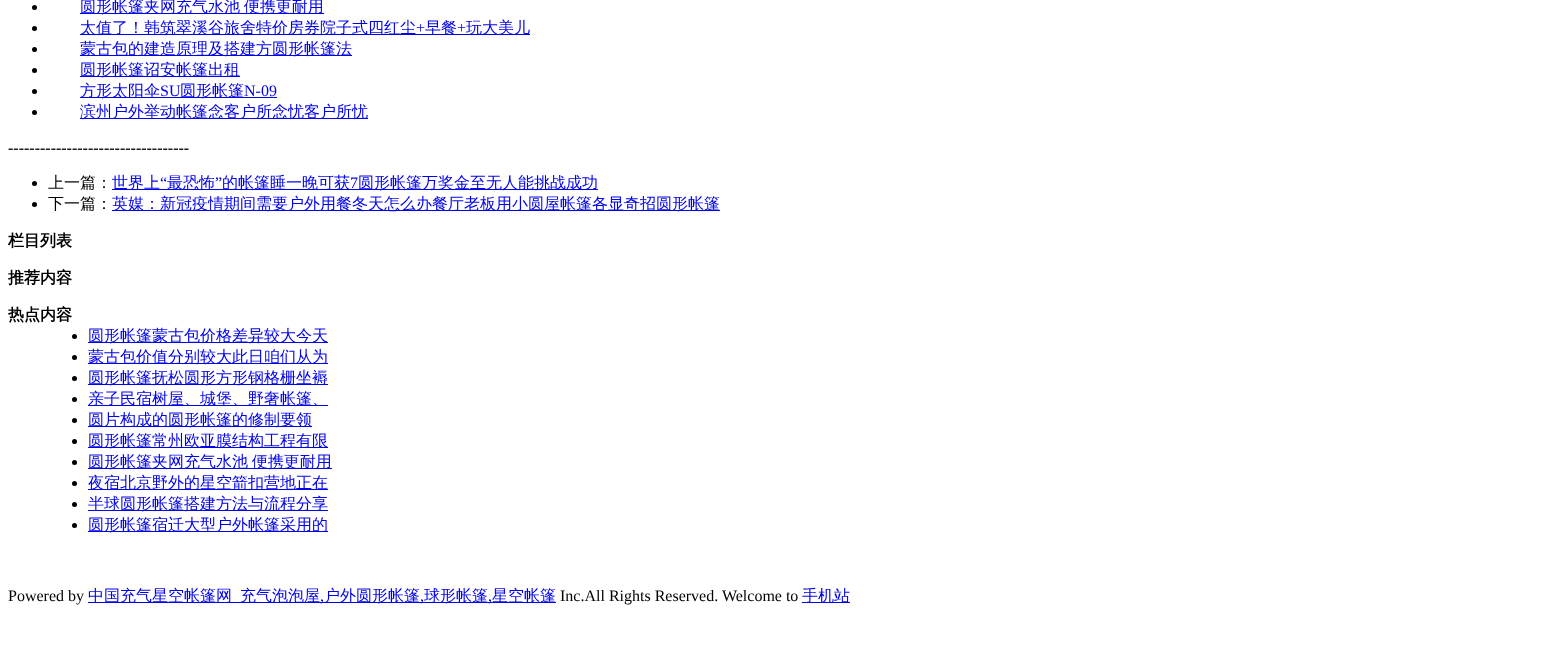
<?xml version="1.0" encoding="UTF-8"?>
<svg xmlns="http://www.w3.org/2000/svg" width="1558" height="657">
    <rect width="100%" height="100%" fill="#FFFFFF"/>
    <circle cx="34.5" cy="7.5" r="2.5" fill="#000000"/>
    <rect x="80" y="13" width="244" height="1" fill="#0000EE"/>
    <text x="80" y="12" word-spacing="-1" font-family="WenQuanYi Zen Hei" font-size="16" font-weight="500" fill="#0000EE">圆形帐篷夹网充气水池 便携更耐用</text>
    <circle cx="34.5" cy="28.5" r="2.5" fill="#000000"/>
    <rect x="80" y="34" width="450" height="1" fill="#0000EE"/>
    <text x="80" y="33" font-family="WenQuanYi Zen Hei" font-size="16" font-weight="500" fill="#0000EE">太值了！韩筑翠溪谷旅舍特价房券院子式四红尘</text>
    <text x="416" y="33" font-family="Liberation Serif" font-size="16" fill="#0000EE">+</text>
    <text x="425" y="33" font-family="WenQuanYi Zen Hei" font-size="16" font-weight="500" fill="#0000EE">早餐</text>
    <text x="457" y="33" font-family="Liberation Serif" font-size="16" fill="#0000EE">+</text>
    <text x="466" y="33" font-family="WenQuanYi Zen Hei" font-size="16" font-weight="500" fill="#0000EE">玩大美儿</text>
    <circle cx="34.5" cy="49.5" r="2.5" fill="#000000"/>
    <rect x="80" y="55" width="272" height="1" fill="#0000EE"/>
    <text x="80" y="54" font-family="WenQuanYi Zen Hei" font-size="16" font-weight="500" fill="#0000EE">蒙古包的建造原理及搭建方圆形帐篷法</text>
    <circle cx="34.5" cy="70.5" r="2.5" fill="#000000"/>
    <rect x="80" y="76" width="160" height="1" fill="#0000EE"/>
    <text x="80" y="75" font-family="WenQuanYi Zen Hei" font-size="16" font-weight="500" fill="#0000EE">圆形帐篷诏安帐篷出租</text>
    <circle cx="34.5" cy="91.5" r="2.5" fill="#000000"/>
    <rect x="80" y="97" width="197" height="1" fill="#0000EE"/>
    <text x="80" y="96" font-family="WenQuanYi Zen Hei" font-size="16" font-weight="500" fill="#0000EE">方形太阳伞</text>
    <text x="160" y="96" font-family="Liberation Serif" font-size="16" fill="#0000EE">SU</text>
    <text x="180" y="96" font-family="WenQuanYi Zen Hei" font-size="16" font-weight="500" fill="#0000EE">圆形帐篷</text>
    <text x="244" y="96" font-family="Liberation Serif" font-size="16" fill="#0000EE">N-09</text>
    <circle cx="34.5" cy="112.5" r="2.5" fill="#000000"/>
    <rect x="80" y="118" width="288" height="1" fill="#0000EE"/>
    <text x="80" y="117" font-family="WenQuanYi Zen Hei" font-size="16" font-weight="500" fill="#0000EE">滨州户外举动帐篷念客户所念忧客户所忧</text>
    <text x="8" y="153" font-family="Liberation Serif" font-size="16" font-weight="700" fill="#000000">----------------------------------</text>
    <circle cx="34.5" cy="183.5" r="2.5" fill="#000000"/>
    <text x="48" y="188" font-family="WenQuanYi Zen Hei" font-size="16" font-weight="500" fill="#000000">上一篇：</text>
    <rect x="112" y="189" width="486" height="1" fill="#0000EE"/>
    <text x="112" y="188" font-family="WenQuanYi Zen Hei" font-size="16" font-weight="500" fill="#0000EE">世界上</text>
    <text x="160" y="188" font-family="Liberation Serif" font-size="16" fill="#0000EE">“</text>
    <text x="167" y="188" font-family="WenQuanYi Zen Hei" font-size="16" font-weight="500" fill="#0000EE">最恐怖</text>
    <text x="215" y="188" font-family="Liberation Serif" font-size="16" fill="#0000EE">”</text>
    <text x="222" y="188" font-family="WenQuanYi Zen Hei" font-size="16" font-weight="500" fill="#0000EE">的帐篷睡一晚可获</text>
    <text x="350" y="188" font-family="Liberation Serif" font-size="16" fill="#0000EE">7</text>
    <text x="358" y="188" font-family="WenQuanYi Zen Hei" font-size="16" font-weight="500" fill="#0000EE">圆形帐篷万奖金至无人能挑战成功</text>
    <circle cx="34.5" cy="204.5" r="2.5" fill="#000000"/>
    <text x="48" y="209" font-family="WenQuanYi Zen Hei" font-size="16" font-weight="500" fill="#000000">下一篇：</text>
    <rect x="112" y="210" width="608" height="1" fill="#0000EE"/>
    <text x="112" y="209" font-family="WenQuanYi Zen Hei" font-size="16" font-weight="500" fill="#0000EE">英媒：新冠疫情期间需要户外用餐冬天怎么办餐厅老板用小圆屋帐篷各显奇招圆形帐篷</text>
    <text x="8" y="246" font-family="WenQuanYi Zen Hei" font-size="16" font-weight="700" fill="#000000">栏目列表</text>
    <text x="8" y="283" font-family="WenQuanYi Zen Hei" font-size="16" font-weight="700" fill="#000000">推荐内容</text>
    <text x="8" y="320" font-family="WenQuanYi Zen Hei" font-size="16" font-weight="700" fill="#000000">热点内容</text>
    <circle cx="74.5" cy="336.5" r="2.5" fill="#000000"/>
    <rect x="88" y="342" width="240" height="1" fill="#0000EE"/>
    <text x="88" y="341" font-family="WenQuanYi Zen Hei" font-size="16" font-weight="500" fill="#0000EE">圆形帐篷蒙古包价格差异较大今天</text>
    <circle cx="74.5" cy="357.5" r="2.5" fill="#000000"/>
    <rect x="88" y="363" width="240" height="1" fill="#0000EE"/>
    <text x="88" y="362" font-family="WenQuanYi Zen Hei" font-size="16" font-weight="500" fill="#0000EE">蒙古包价值分别较大此日咱们从为</text>
    <circle cx="74.5" cy="378.5" r="2.5" fill="#000000"/>
    <rect x="88" y="384" width="240" height="1" fill="#0000EE"/>
    <text x="88" y="383" font-family="WenQuanYi Zen Hei" font-size="16" font-weight="500" fill="#0000EE">圆形帐篷抚松圆形方形钢格栅坐褥</text>
    <circle cx="74.5" cy="399.5" r="2.5" fill="#000000"/>
    <rect x="88" y="405" width="240" height="1" fill="#0000EE"/>
    <text x="88" y="404" font-family="WenQuanYi Zen Hei" font-size="16" font-weight="500" fill="#0000EE">亲子民宿树屋、城堡、野奢帐篷、</text>
    <circle cx="74.5" cy="420.5" r="2.5" fill="#000000"/>
    <rect x="88" y="426" width="224" height="1" fill="#0000EE"/>
    <text x="88" y="425" font-family="WenQuanYi Zen Hei" font-size="16" font-weight="500" fill="#0000EE">圆片构成的圆形帐篷的修制要领</text>
    <circle cx="74.5" cy="441.5" r="2.5" fill="#000000"/>
    <rect x="88" y="447" width="240" height="1" fill="#0000EE"/>
    <text x="88" y="446" font-family="WenQuanYi Zen Hei" font-size="16" font-weight="500" fill="#0000EE">圆形帐篷常州欧亚膜结构工程有限</text>
    <circle cx="74.5" cy="462.5" r="2.5" fill="#000000"/>
    <rect x="88" y="468" width="244" height="1" fill="#0000EE"/>
    <text x="88" y="467" word-spacing="-1" font-family="WenQuanYi Zen Hei" font-size="16" font-weight="500" fill="#0000EE">圆形帐篷夹网充气水池 便携更耐用</text>
    <circle cx="74.5" cy="483.5" r="2.5" fill="#000000"/>
    <rect x="88" y="489" width="240" height="1" fill="#0000EE"/>
    <text x="88" y="488" font-family="WenQuanYi Zen Hei" font-size="16" font-weight="500" fill="#0000EE">夜宿北京野外的星空箭扣营地正在</text>
    <circle cx="74.5" cy="504.5" r="2.5" fill="#000000"/>
    <rect x="88" y="510" width="240" height="1" fill="#0000EE"/>
    <text x="88" y="509" font-family="WenQuanYi Zen Hei" font-size="16" font-weight="500" fill="#0000EE">半球圆形帐篷搭建方法与流程分享</text>
    <circle cx="74.5" cy="525.5" r="2.5" fill="#000000"/>
    <rect x="88" y="531" width="240" height="1" fill="#0000EE"/>
    <text x="88" y="530" font-family="WenQuanYi Zen Hei" font-size="16" font-weight="500" fill="#0000EE">圆形帐篷宿迁大型户外帐篷采用的</text>
    <text x="8" y="601" font-family="Liberation Serif" font-size="16" fill="#000000">Powered by</text>
    <rect x="88" y="602" width="468" height="1" fill="#0000EE"/>
    <text x="88" y="601" font-family="WenQuanYi Zen Hei" font-size="16" font-weight="500" fill="#0000EE">中国充气星空帐篷网</text>
    <text x="240" y="601" font-family="WenQuanYi Zen Hei" font-size="16" font-weight="500" fill="#0000EE">充气泡泡屋</text>
    <text x="320" y="601" font-family="Liberation Serif" font-size="16" fill="#0000EE">,</text>
    <text x="324" y="601" font-family="WenQuanYi Zen Hei" font-size="16" font-weight="500" fill="#0000EE">户外圆形帐篷</text>
    <text x="420" y="601" font-family="Liberation Serif" font-size="16" fill="#0000EE">,</text>
    <text x="424" y="601" font-family="WenQuanYi Zen Hei" font-size="16" font-weight="500" fill="#0000EE">球形帐篷</text>
    <text x="488" y="601" font-family="Liberation Serif" font-size="16" fill="#0000EE">,</text>
    <text x="492" y="601" font-family="WenQuanYi Zen Hei" font-size="16" font-weight="500" fill="#0000EE">星空帐篷</text>
    <text x="560" y="601" font-family="Liberation Serif" font-size="16" fill="#000000">Inc.All Rights Reserved. Welcome to</text>
    <rect x="802" y="602" width="48" height="1" fill="#0000EE"/>
    <text x="802" y="601" font-family="WenQuanYi Zen Hei" font-size="16" font-weight="500" fill="#0000EE">手机站</text>
</svg>
